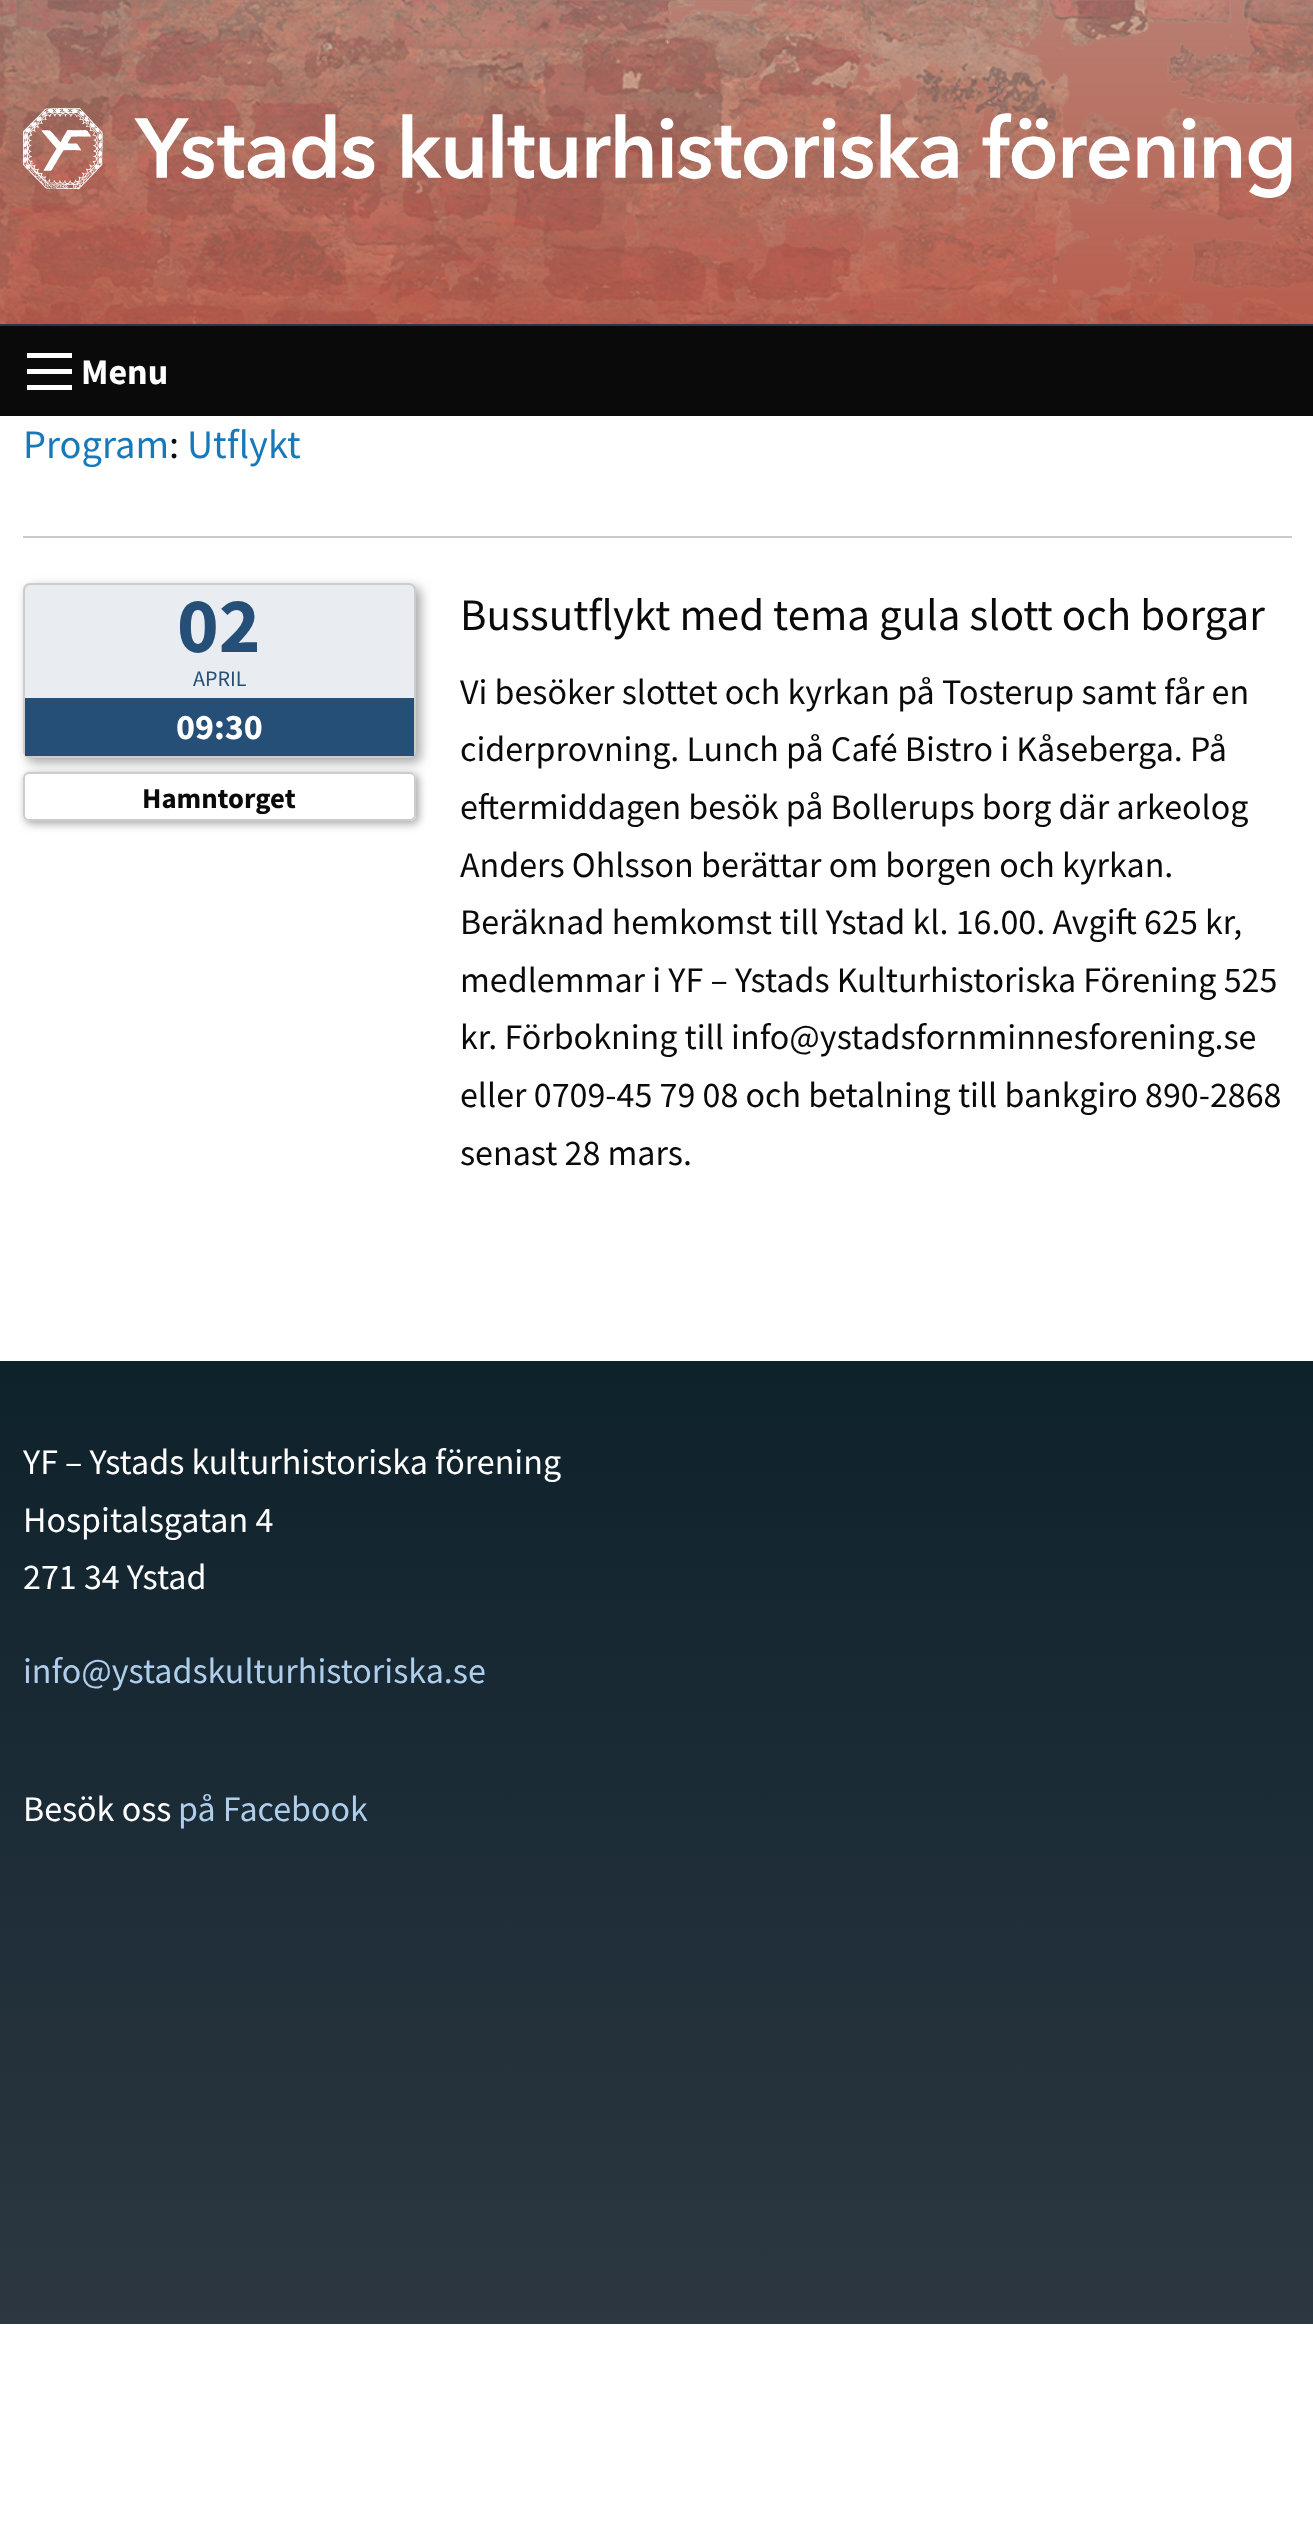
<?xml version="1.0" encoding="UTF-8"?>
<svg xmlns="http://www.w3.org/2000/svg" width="1313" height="2536">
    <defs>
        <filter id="blur1" x="-50%" y="-200%" width="200%" height="500%"><feGaussianBlur stdDeviation="5.5"/></filter>
        <clipPath id="clip1"><path d="M 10 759 H 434 V 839 H 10 Z M 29 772 H 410 C 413.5 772 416 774.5 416 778 V 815 C 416 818.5 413.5 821 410 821 H 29 C 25.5 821 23 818.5 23 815 V 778 C 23 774.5 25.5 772 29 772 Z" clip-rule="evenodd"/></clipPath>
        <filter id="blur2" x="-50%" y="-200%" width="200%" height="500%"><feGaussianBlur stdDeviation="4.5"/></filter>
        <linearGradient id="g1" gradientUnits="userSpaceOnUse" x1="657" y1="1361" x2="657" y2="2324"><stop offset="0" stop-color="#0E222C"/><stop offset="1" stop-color="#2C3741"/></linearGradient>
    </defs>
    <rect width="100%" height="100%" fill="#FFFFFF"/>
    <rect x="0" y="0" width="1313" height="324" fill="#B85E4E"/>
    <image x="0" y="0" width="1313" height="324" href="img_01.png"/>
    <rect x="0" y="324" width="1313" height="2" fill="#2C3741"/>
    <image x="23" y="108" width="1269" height="90" href="img_02.png"/>
    <rect x="0" y="326" width="1313" height="90" fill="#0A0A0A"/>
    <rect x="27" y="385" width="45" height="5" fill="#FEFEFE"/>
    <rect x="27" y="369" width="45" height="5" fill="#FEFEFE"/>
    <rect x="27" y="353" width="45" height="5" fill="#FEFEFE"/>
    <text x="81" y="384" font-family="Source Sans Pro" font-size="36" font-weight="700" fill="#FEFEFE">Menu</text>
    <text x="23" y="458" font-family="Source Sans Pro" font-size="40.5" fill="#1779BA">Program</text>
    <text x="169" y="458" font-family="Source Sans Pro" font-size="40.5" fill="#0A0A0A">:</text>
    <text x="187" y="458" font-family="Source Sans Pro" font-size="40.5" fill="#1779BA">Utflykt</text>
    <rect x="23" y="536" width="1269" height="2" fill="#CACACA"/>
    <rect x="27" y="587" width="394" height="176" rx="7" fill="#AAAAAA" filter="url(#blur1)"/>
    <rect x="24" y="584" width="391" height="173" rx="6" fill="#E9EDF1" stroke="#CCCCCC" stroke-width="2"/>
    <text x="177" y="652" font-family="Source Sans Pro" font-size="79" font-weight="700" fill="#254F76">02</text>
    <text x="193" y="686" font-family="Source Sans Pro" font-size="22" fill="#254F76">APRIL</text>
    <rect x="25" y="698" width="389" height="58" fill="#254F76"/>
    <text x="176" y="739" font-family="Source Sans Pro" font-size="36" font-weight="700" fill="#FEFEFE">09:30</text>
    <g clip-path="url(#clip1)">
        <rect x="25" y="774" width="394" height="50" rx="6" fill="#AAAAAA" filter="url(#blur2)"/>
    </g>
    <rect x="24" y="773" width="391" height="47" rx="5" fill="none" stroke="#CCCCCC" stroke-width="2"/>
    <text x="142" y="808" font-family="Source Sans Pro" font-size="28.75" font-weight="700" fill="#0A0A0A">Hamntorget</text>
    <text x="460" y="630" font-family="Source Sans Pro" font-size="45" fill="#0A0A0A">Bussutflykt med tema gula slott och borgar</text>
    <text font-family="Source Sans Pro" font-size="36" fill="#0A0A0A">
        <tspan x="460" y="704">Vi besöker slottet och kyrkan på Tosterup samt får en</tspan>
        <tspan x="460" y="761">ciderprovning. Lunch på Café Bistro i Kåseberga. På</tspan>
        <tspan x="460" y="819">eftermiddagen besök på Bollerups borg där arkeolog</tspan>
        <tspan x="460" y="877">Anders Ohlsson berättar om borgen och kyrkan.</tspan>
        <tspan x="460" y="934">Beräknad hemkomst till Ystad kl. 16.00. Avgift 625 kr,</tspan>
        <tspan x="460" y="992">medlemmar i YF – Ystads Kulturhistoriska Förening 525</tspan>
        <tspan x="460" y="1049">kr. Förbokning till info@ystadsfornminnesforening.se</tspan>
        <tspan x="460" y="1107">eller 0709-45 79 08 och betalning till bankgiro 890-2868</tspan>
        <tspan x="460" y="1165">senast 28 mars.</tspan>
    </text>
    <rect x="0" y="1361" width="1313" height="963" fill="url(#g1)"/>
    <text font-family="Source Sans Pro" font-size="36" fill="#FEFEFE">
        <tspan x="23" y="1474">YF – Ystads kulturhistoriska förening</tspan>
        <tspan x="23" y="1532">Hospitalsgatan 4</tspan>
        <tspan x="23" y="1589">271 34 Ystad</tspan>
    </text>
    <text x="23" y="1683" font-family="Source Sans Pro" font-size="36" fill="#AECEEC">info@ystadskulturhistoriska.se</text>
    <text x="23" y="1821" font-family="Source Sans Pro" font-size="36" fill="#FEFEFE">Besök oss</text>
    <text x="178" y="1821" font-family="Source Sans Pro" font-size="36" fill="#AECEEC">på Facebook</text>
</svg>
